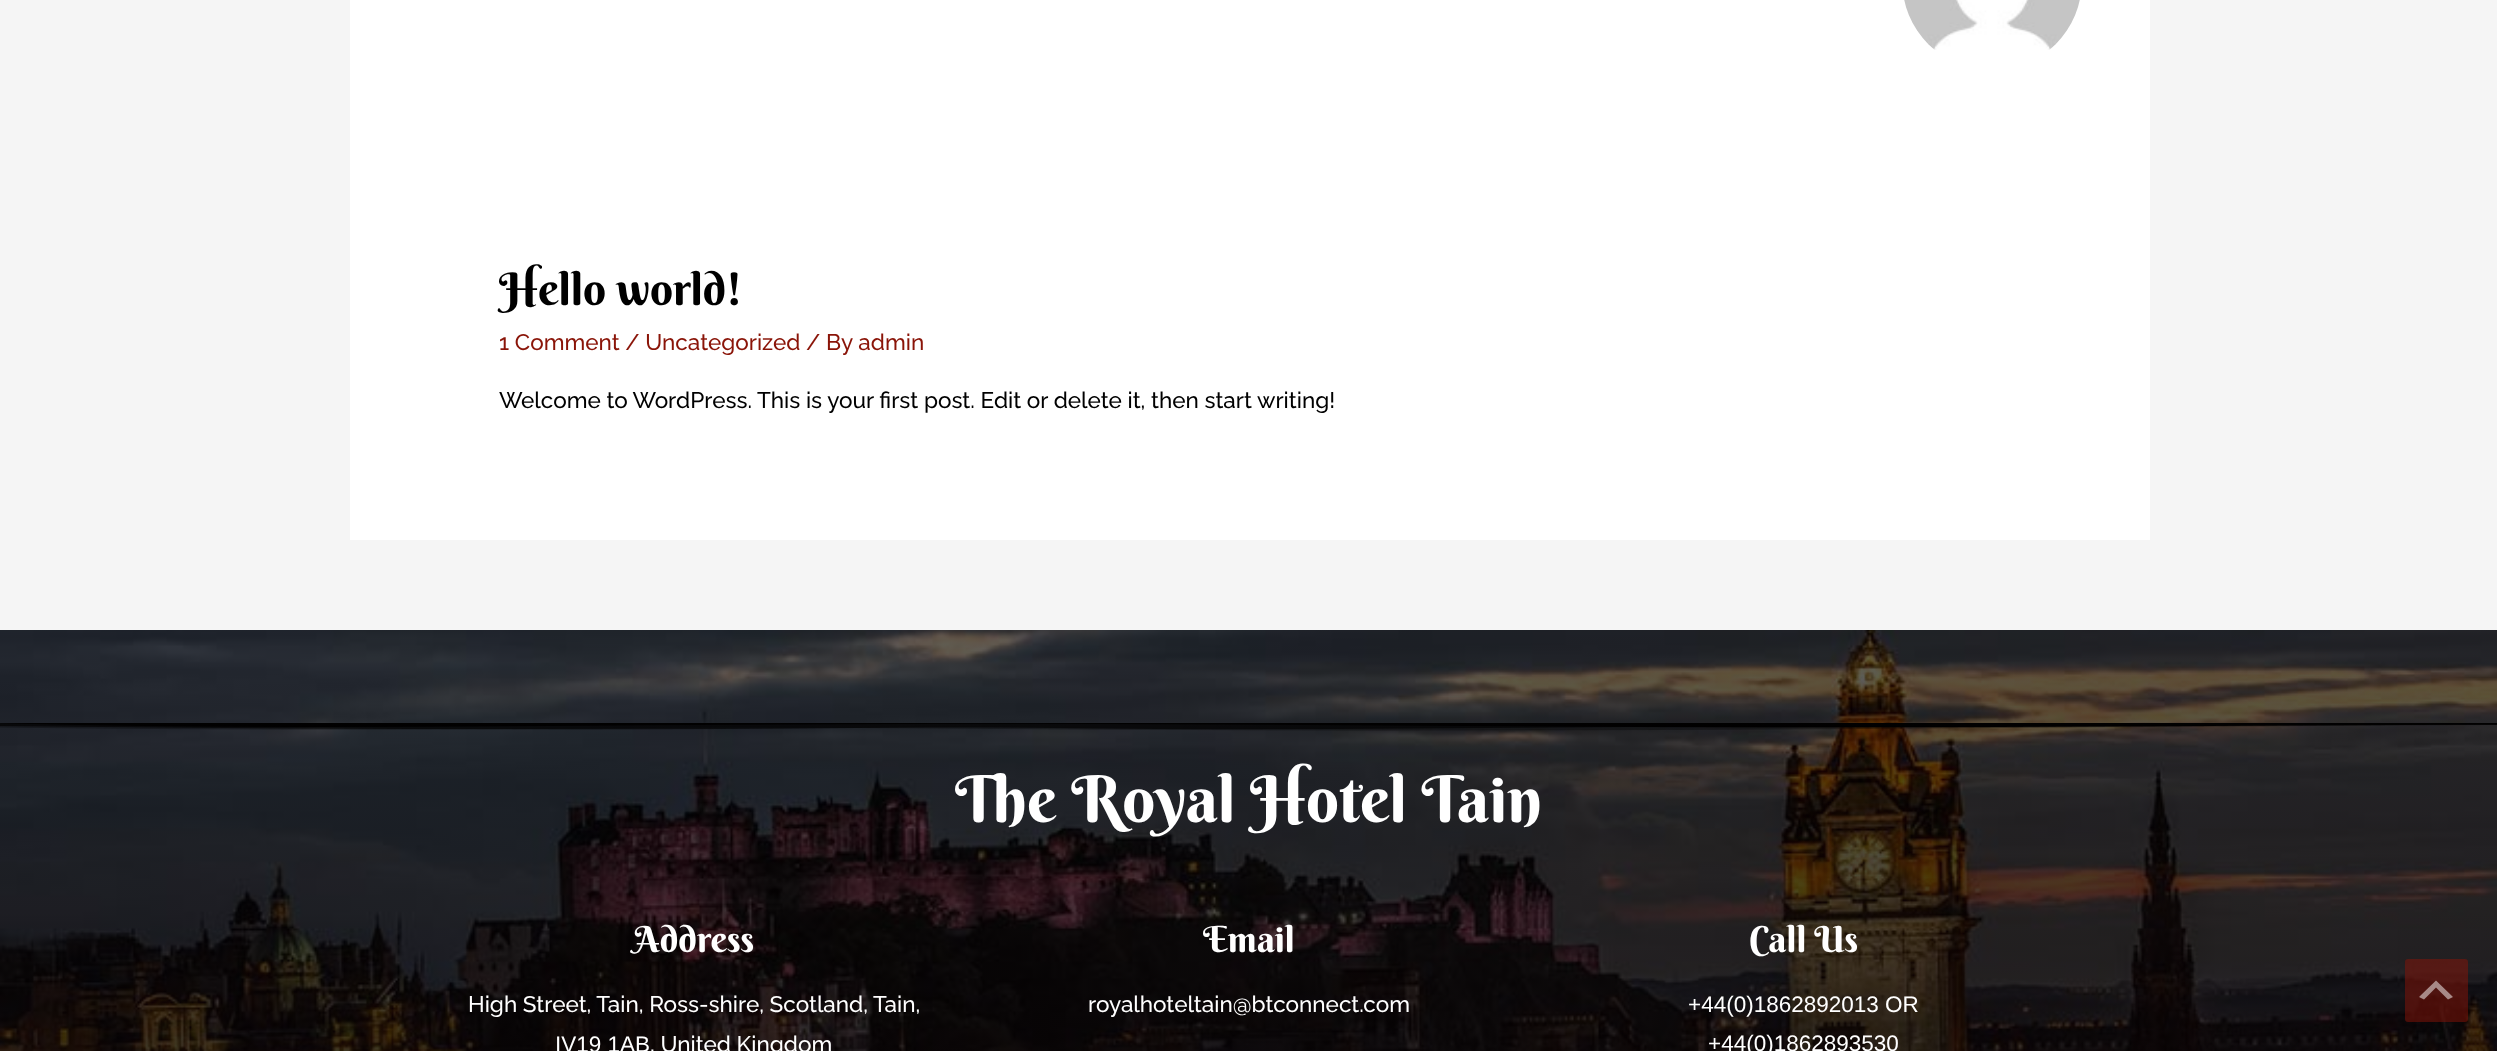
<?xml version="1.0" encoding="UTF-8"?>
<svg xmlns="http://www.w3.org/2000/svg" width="2497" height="1051">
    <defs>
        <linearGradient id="g1" gradientUnits="userSpaceOnUse" x1="1249" y1="630" x2="1249" y2="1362"><stop offset="0" stop-color="#000000" stop-opacity="0.62"/><stop offset="1" stop-color="#0C0507" stop-opacity="0.9"/></linearGradient>
    </defs>
    <rect width="100%" height="100%" fill="#F5F5F5"/>
    <rect x="350" y="0" width="1800" height="540" fill="#FFFFFF"/>
    <image x="1904" y="0" width="176" height="50" href="img_01.png"/>
    <text x="499" y="305" font-family="Berkshire Swash" font-size="45" fill="#000000">Hello world!</text>
    <text x="499" y="350" font-family="Raleway" font-size="22.5" font-weight="500" fill="#8A1408">1 Comment / Uncategorized / By admin</text>
    <text x="499" y="408" font-family="Raleway" font-size="22.5" font-weight="500" fill="#000000">Welcome to WordPress. This is your first post. Edit or delete it, then start writing!</text>
    <image x="0" y="630" width="2497" height="421" href="img_02.png"/>
    <image x="0" y="723" width="2497" height="8" href="img_03.png"/>
    <rect x="0" y="630" width="2497" height="421" fill="url(#g1)"/>
    <text x="955" y="822" font-family="Berkshire Swash" font-size="64.5" fill="#FFFFFF">The Royal Hotel Tain</text>
    <text x="633" y="952" font-family="Berkshire Swash" font-size="36" fill="#FFFFFF">Address</text>
    <text x="468" y="1012" font-family="Raleway" font-size="22.5" font-weight="500" fill="#FFFFFF">High Street, Tain, Ross-shire, Scotland, Tain,</text>
    <text x="555" y="1052" font-family="Liberation Sans" font-size="22.5" fill="#FFFFFF">IV19 1AB</text>
    <text x="650" y="1052" font-family="Raleway" font-size="22.5" font-weight="500" fill="#FFFFFF">, United Kingdom</text>
    <text x="1203" y="952" font-family="Berkshire Swash" font-size="36" fill="#FFFFFF">Email</text>
    <text x="1088" y="1012" font-family="Raleway" font-size="22.5" font-weight="500" fill="#FFFFFF">royalhoteltain@btconnect.com</text>
    <text x="1749" y="952" font-family="Berkshire Swash" font-size="36" fill="#FFFFFF">Call Us</text>
    <text x="1688" y="1012" font-family="Liberation Sans" font-size="22.5" fill="#FFFFFF">+44(0)1862892013 OR</text>
    <text x="1708" y="1051" font-family="Liberation Sans" font-size="22.5" fill="#FFFFFF">+44(0)1862893530</text>
    <rect x="2405" y="959" width="63" height="63" rx="3" fill="#8A1408" fill-opacity="0.5"/>
    <path d="M 2448 999.5 L 2436 987.5 L 2424 999.5 L 2419 997 L 2436 980.5 L 2453 997 Z" fill="#FFFFFF" fill-opacity="0.5"/>
</svg>
